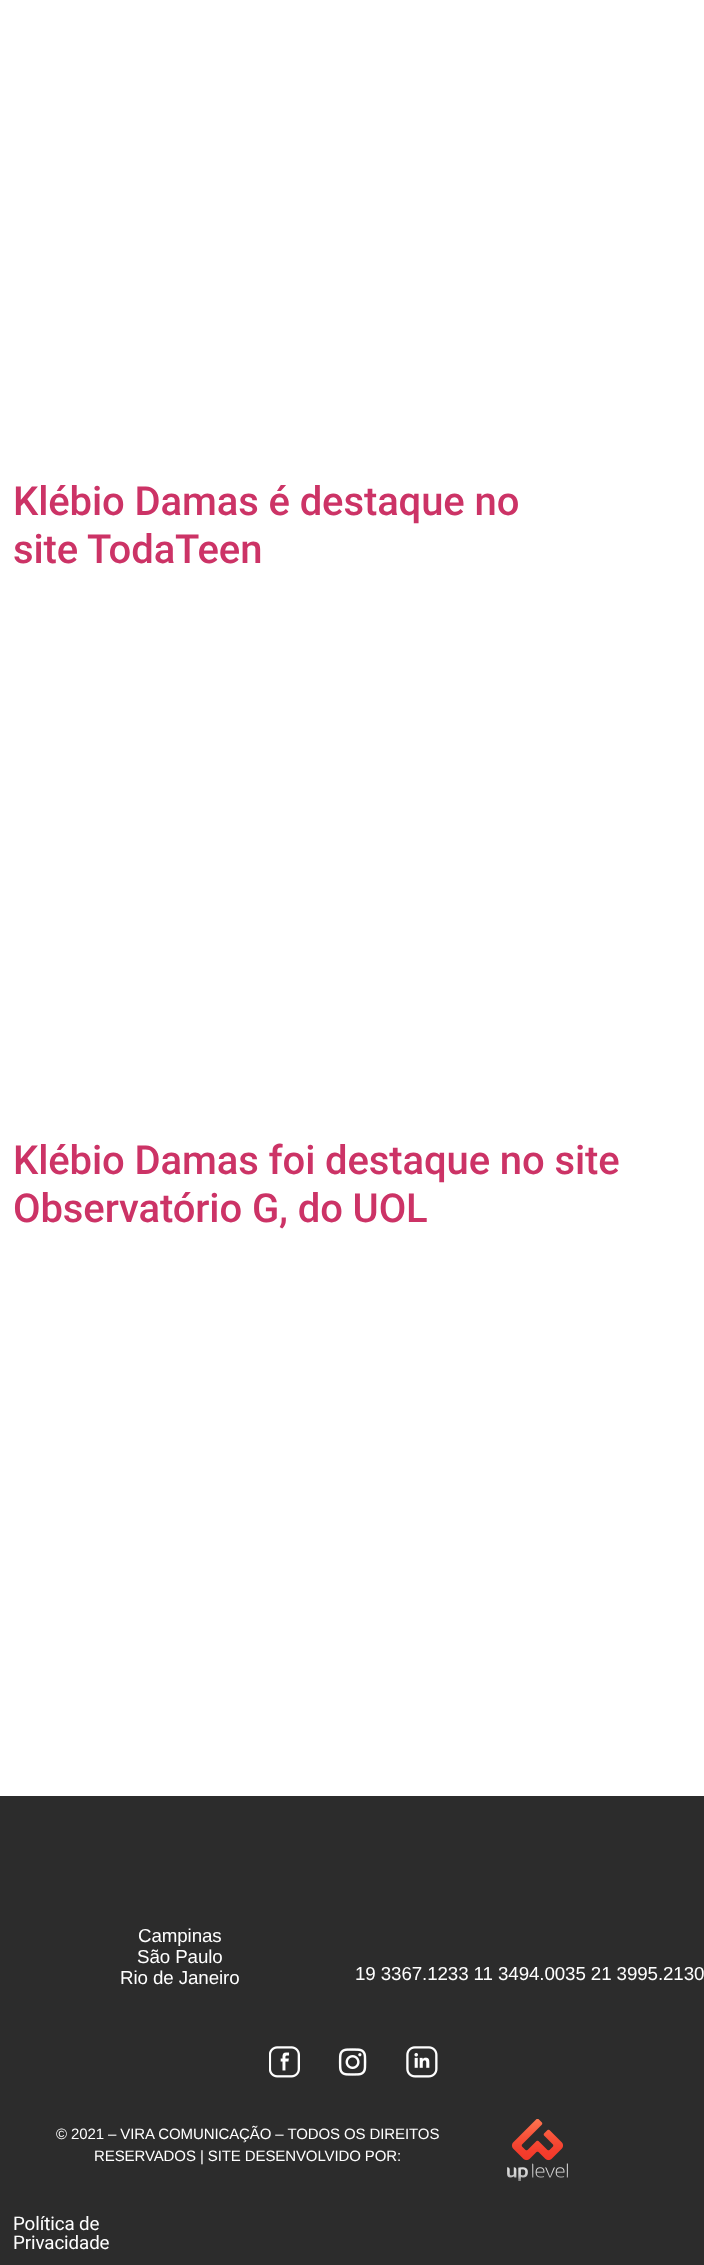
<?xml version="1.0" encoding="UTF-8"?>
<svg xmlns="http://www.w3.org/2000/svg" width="704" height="2265">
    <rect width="100%" height="100%" fill="#FFFFFF"/>
    <text font-family="Roboto" font-size="40" font-weight="500" letter-spacing="-0.1" fill="#CC3366">
        <tspan x="13" y="515">Klébio Damas é destaque no</tspan>
        <tspan x="13" y="563">site TodaTeen</tspan>
    </text>
    <text font-family="Roboto" font-size="40" font-weight="500" letter-spacing="-0.1" fill="#CC3366">
        <tspan x="13" y="1174">Klébio Damas foi destaque no site</tspan>
        <tspan x="13" y="1222">Observatório G, do UOL</tspan>
    </text>
    <rect x="0" y="1796" width="704" height="469" fill="#2C2C2C"/>
    <text x="138" y="1942" font-family="Liberation Sans" font-size="18.75" letter-spacing="-0.1" fill="#FFFFFF">Campinas</text>
    <text x="137" y="1963" font-family="Liberation Sans" font-size="18.75" letter-spacing="-0.1" fill="#FFFFFF">São Paulo</text>
    <text x="120" y="1984" font-family="Liberation Sans" font-size="18.75" letter-spacing="-0.1" fill="#FFFFFF">Rio de Janeiro</text>
    <text x="355" y="1980" font-family="Liberation Sans" font-size="18.75" letter-spacing="-0.1" fill="#FFFFFF">19 3367.1233 11 3494.0035 21 3995.2130</text>
    <image x="269" y="2046" width="31" height="32" href="img_01.png"/>
    <image x="338" y="2048" width="29" height="28" href="img_02.png"/>
    <image x="406" y="2046" width="32" height="32" href="img_03.png"/>
    <text x="56" y="2139" font-family="Liberation Sans" font-size="15" letter-spacing="-0.1" fill="#FFFFFF">© 2021 – VIRA COMUNICAÇÃO – TODOS OS DIREITOS</text>
    <text x="94" y="2161" font-family="Liberation Sans" font-size="15" letter-spacing="-0.1" fill="#FFFFFF">RESERVADOS | SITE DESENVOLVIDO POR:</text>
    <image x="507" y="2119" width="61" height="62" href="img_04.png"/>
    <text font-family="Roboto" font-size="18.75" letter-spacing="-0.1" fill="#FFFFFF">
        <tspan x="13" y="2230">Política de</tspan>
        <tspan x="13" y="2249">Privacidade</tspan>
    </text>
</svg>
